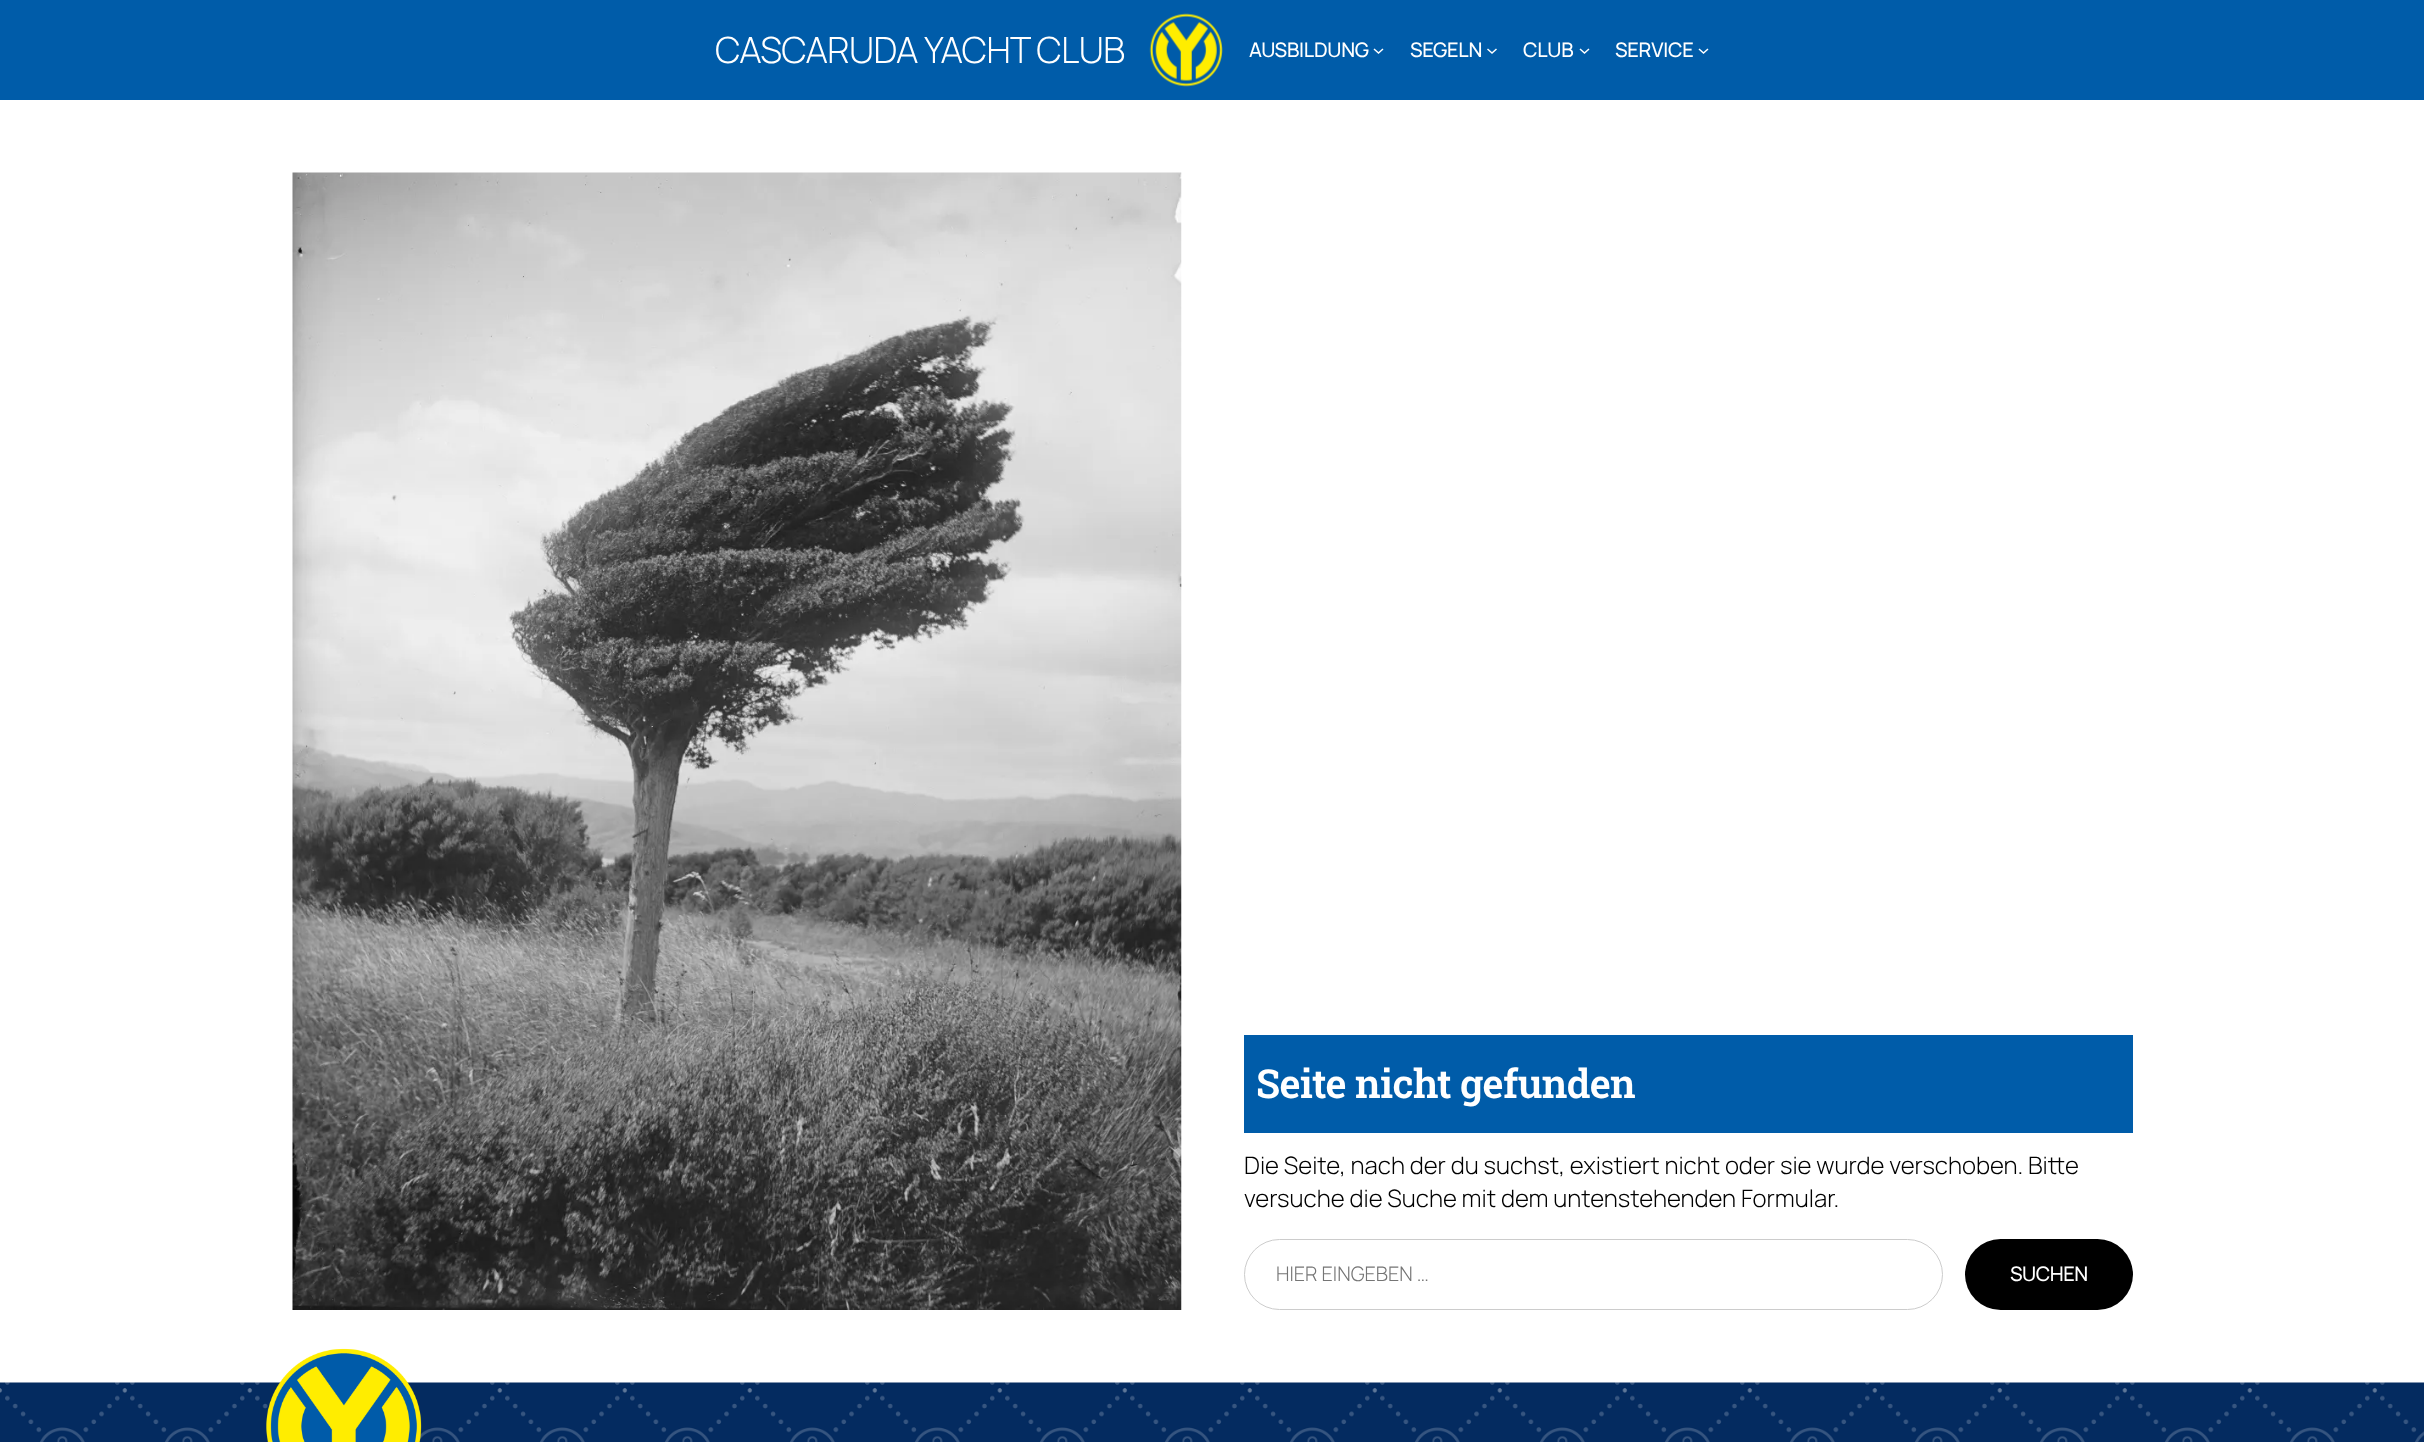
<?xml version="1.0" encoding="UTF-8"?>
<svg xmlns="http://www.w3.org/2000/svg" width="2424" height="1442">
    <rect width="100%" height="100%" fill="#FFFFFF"/>
    <rect x="0" y="0" width="2424" height="100" fill="#005CA9"/>
    <text x="715" y="63" font-family="Manrope" font-size="36" font-weight="300" letter-spacing="-0.6" fill="#FFFFFF">CASCARUDA YACHT CLUB</text>
    <image x="1149" y="13" width="74" height="74" href="img_01.png"/>
    <text x="1249" y="57" font-family="Manrope" font-size="20" font-weight="500" letter-spacing="-0.25" fill="#FFFFFF">AUSBILDUNG</text>
    <path d="M 1374 49 L 1378.5 53 L 1383 49" fill="none" stroke="#FFFFFF" stroke-width="1.5"/>
    <text x="1410" y="57" font-family="Manrope" font-size="20" font-weight="500" letter-spacing="-0.25" fill="#FFFFFF">SEGELN</text>
    <path d="M 1487.5 49 L 1492 53 L 1496.5 49" fill="none" stroke="#FFFFFF" stroke-width="1.5"/>
    <text x="1523" y="57" font-family="Manrope" font-size="20" font-weight="500" letter-spacing="-0.25" fill="#FFFFFF">CLUB</text>
    <path d="M 1580 49 L 1584.5 53 L 1589 49" fill="none" stroke="#FFFFFF" stroke-width="1.5"/>
    <text x="1615" y="57" font-family="Manrope" font-size="20" font-weight="500" letter-spacing="-0.25" fill="#FFFFFF">SERVICE</text>
    <path d="M 1699 49 L 1703.5 53 L 1708 49" fill="none" stroke="#FFFFFF" stroke-width="1.5"/>
    <image x="292" y="172" width="890" height="1138" href="img_02.png"/>
    <rect x="1244" y="1035" width="889" height="98" fill="#005CA9"/>
    <text x="1256" y="1098" font-family="Roboto Slab" font-size="40" font-weight="600" letter-spacing="-0.6" fill="#FFFFFF">Seite nicht gefunden</text>
    <text font-family="Manrope" font-size="24" font-weight="300" fill="#000000">
        <tspan x="1244" y="1174">Die Seite, nach der du suchst, existiert nicht oder sie wurde verschoben. Bitte</tspan>
        <tspan x="1244" y="1207">versuche die Suche mit dem untenstehenden Formular.</tspan>
    </text>
    <rect x="1244.5" y="1239.5" width="698" height="70" rx="35" fill="none" stroke="#CCCCCC"/>
    <text x="1276" y="1281" font-family="Manrope" font-size="20" font-weight="300" fill="#757575">HIER EINGEBEN …</text>
    <rect x="1965" y="1239" width="168" height="71" rx="35.5" fill="#000000"/>
    <text x="2010" y="1281" font-family="Manrope" font-size="20" font-weight="500" letter-spacing="-0.5" fill="#FFFFFF">SUCHEN</text>
    <image x="0" y="1382" width="2424" height="60" href="img_03.png"/>
    <image x="266" y="1348" width="156" height="94" href="img_04.png"/>
</svg>
